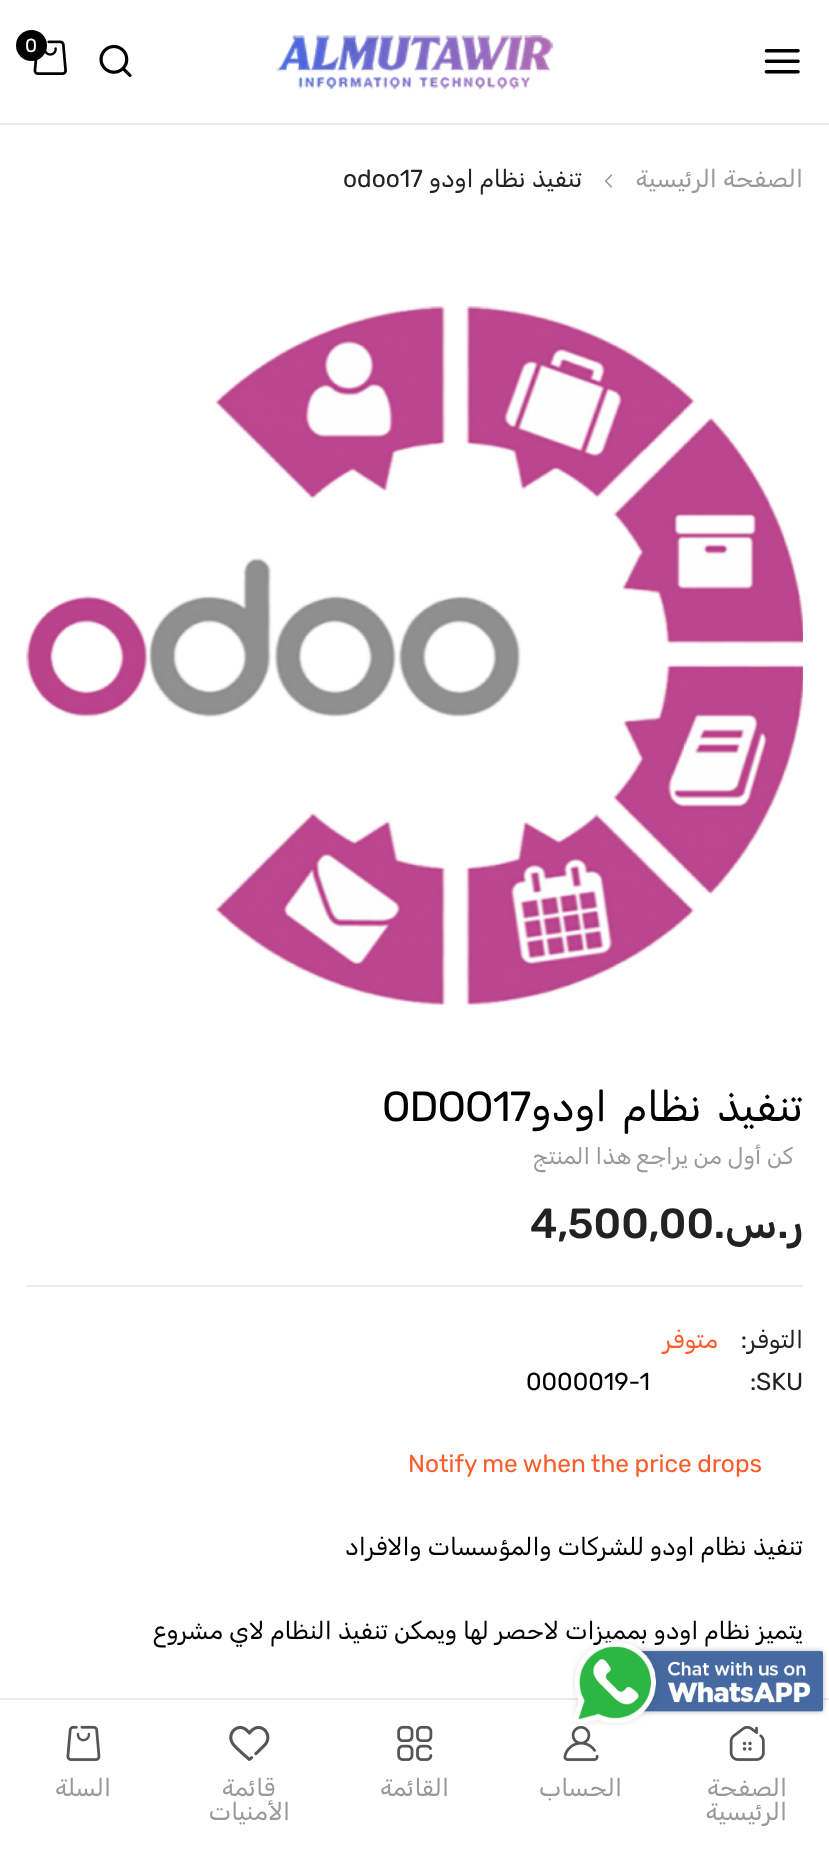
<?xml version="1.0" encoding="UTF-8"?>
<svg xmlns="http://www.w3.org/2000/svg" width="829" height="1852">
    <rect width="100%" height="100%" fill="#FFFFFF"/>
    <image x="764" y="49" width="36" height="25" href="img_01.png"/>
    <image x="276" y="35" width="278" height="55" href="img_02.png"/>
    <image x="99" y="44" width="33" height="33" href="img_03.png"/>
    <image x="33" y="40" width="34" height="35" href="img_04.png"/>
    <circle cx="31.5" cy="45.5" r="15.5" fill="#000000"/>
    <text x="25" y="52" font-family="Rubik" font-size="19" fill="#FFFFFF">0</text>
    <rect x="0" y="123" width="829" height="2" fill="#EBEBEB"/>
    <text x="803" y="187" font-family="Rubik" font-size="24.5" direction="rtl" fill="#999999">الصفحة الرئيسية</text>
    <image x="604" y="174" width="9" height="14" href="img_05.png"/>
    <text x="582" y="187" font-family="Rubik" font-size="24.5" direction="rtl" fill="#222222">تنفيذ نظام اودو</text>
    <text x="343" y="187" font-family="Rubik" font-size="24.5" fill="#222222">odoo17</text>
    <image x="26" y="306" width="777" height="699" href="img_06.png"/>
    <text x="803" y="1121" word-spacing="5" font-family="Rubik" font-size="42" letter-spacing="-0.9" direction="rtl" fill="#000000">تنفيذ نظام اودو</text>
    <text x="382" y="1121" font-family="Rubik" font-size="42" letter-spacing="-0.9" fill="#000000">ODOO17</text>
    <text x="793" y="1164" font-family="Rubik" font-size="22.75" direction="rtl" fill="#999999">كن أول من يراجع هذا المنتج</text>
    <rect x="26" y="1285" width="777" height="2" fill="#EBEBEB"/>
    <text x="803" y="1238" font-family="Rubik" font-size="42" font-weight="500" direction="rtl" fill="#222222">ر.س.</text>
    <text x="530" y="1238" font-family="Rubik" font-size="42" font-weight="500" fill="#222222">4٬500٫00</text>
    <text x="803" y="1348" font-family="Rubik" font-size="24.5" direction="rtl" fill="#222222">التوفر:</text>
    <text x="718" y="1348" font-family="Rubik" font-size="24.5" direction="rtl" fill="#FA5D2A">متوفر</text>
    <text x="756" y="1390" font-family="Rubik" font-size="24.5" fill="#222222">SKU</text>
    <text x="750" y="1390" font-family="Rubik" font-size="24.5" fill="#222222">:</text>
    <text x="526" y="1390" font-family="Rubik" font-size="24.5" fill="#000000">0000019-1</text>
    <text x="408" y="1472" word-spacing="-0.5" font-family="Rubik" font-size="24.5" fill="#FA5D2A">Notify me when the price drops</text>
    <text x="803" y="1555" font-family="Rubik" font-size="24.5" direction="rtl" fill="#000000">تنفيذ نظام اودو للشركات والمؤسسات والافراد</text>
    <text x="803" y="1639" font-family="Rubik" font-size="24.5" direction="rtl" fill="#000000">يتميز نظام اودو بمميزات لاحصر لها ويمكن تنفيذ النظام لاي مشروع</text>
    <rect x="0" y="1698" width="829" height="2" fill="#EBEBEB"/>
    <image x="729" y="1725" width="36" height="36" href="img_08.png"/>
    <image x="572" y="1639" width="255" height="87" href="img_07.png"/>
    <text font-family="Rubik" font-size="24.5" direction="rtl" fill="#999999">
        <tspan x="787" y="1796">الصفحة</tspan>
        <tspan x="787" y="1820">الرئيسية</tspan>
    </text>
    <image x="563" y="1726" width="36" height="35" href="img_09.png"/>
    <text x="622" y="1796" font-family="Rubik" font-size="24.5" direction="rtl" fill="#999999">الحساب</text>
    <image x="397" y="1725" width="36" height="36" href="img_10.png"/>
    <text x="449" y="1796" font-family="Rubik" font-size="24.5" direction="rtl" fill="#999999">القائمة</text>
    <image x="229" y="1725" width="41" height="36" href="img_11.png"/>
    <text x="275" y="1796" font-family="Rubik" font-size="24.5" direction="rtl" fill="#999999">قائمة</text>
    <text x="290" y="1820" font-family="Rubik" font-size="24.5" direction="rtl" fill="#999999">الأمنيات</text>
    <image x="66" y="1725" width="35" height="36" href="img_12.png"/>
    <text x="111" y="1796" font-family="Rubik" font-size="24.5" direction="rtl" fill="#999999">السلة</text>
</svg>
